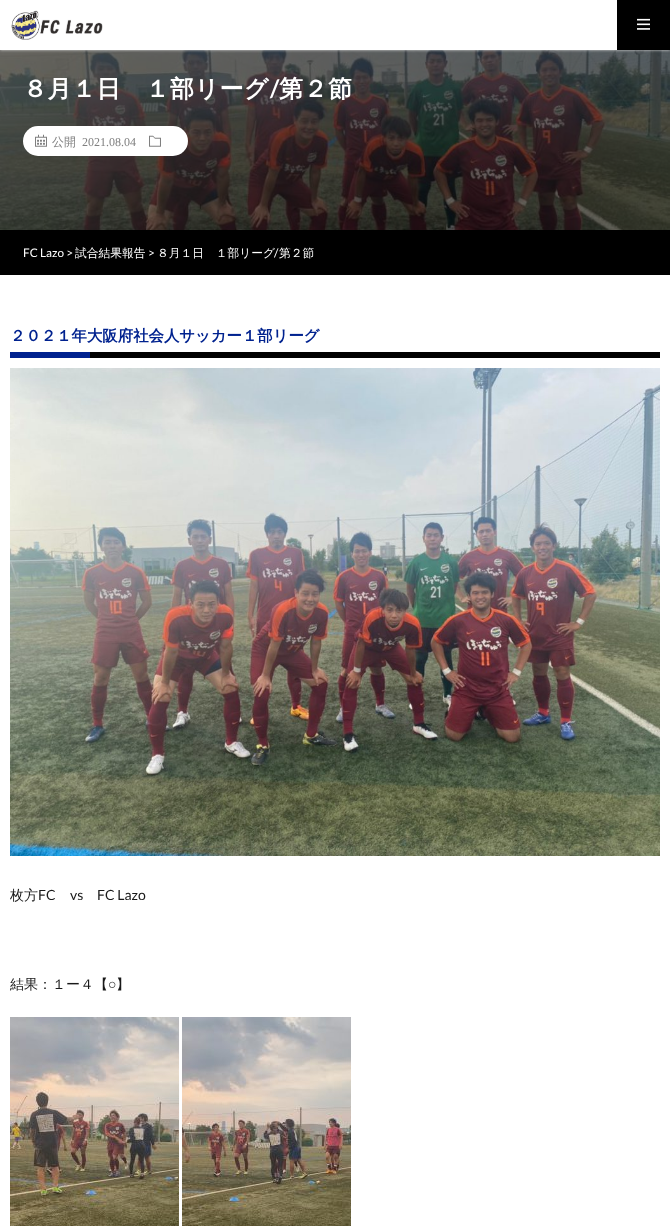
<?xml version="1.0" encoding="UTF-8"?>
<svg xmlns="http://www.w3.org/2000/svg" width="670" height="1226">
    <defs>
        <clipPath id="clip1"><rect x="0" y="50" width="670" height="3"/></clipPath>
        <filter id="blur1" x="-50%" y="-200%" width="200%" height="500%"><feGaussianBlur stdDeviation="1.5"/></filter>
    </defs>
    <rect width="100%" height="100%" fill="#FFFFFF"/>
    <image x="0" y="50" width="670" height="180" href="img_03.png"/>
    <g clip-path="url(#clip1)">
        <rect x="0" y="0" width="670" height="50" fill="#DDDDDD" filter="url(#blur1)"/>
    </g>
    <image x="11" y="10" width="92" height="30" href="img_01.png"/>
    <rect x="617" y="0" width="53" height="50" fill="#000000"/>
    <image x="637" y="18" width="13" height="12" href="img_02.png"/>
    <text x="23" y="97" font-family="WenQuanYi Zen Hei" font-size="24" font-weight="700" letter-spacing="0.5" fill="#FFFFFF">８月１日　１部リーグ</text>
    <text x="270" y="97" font-family="Lato" font-size="24" font-weight="700" letter-spacing="0.5" fill="#FFFFFF">/</text>
    <text x="279" y="97" font-family="WenQuanYi Zen Hei" font-size="24" font-weight="700" letter-spacing="0.5" fill="#FFFFFF">第２節</text>
    <rect x="23" y="126" width="165" height="30" rx="15" fill="#FFFFFF"/>
    <image x="35" y="134" width="12" height="13" href="img_04.png"/>
    <text x="52" y="146" font-family="WenQuanYi Zen Hei" font-size="12" font-weight="500" fill="#7F7F7F">公開</text>
    <text x="82" y="146" font-family="Liberation Serif" font-size="12" fill="#7F7F7F">2021.08.04</text>
    <image x="149" y="135" width="12" height="12" href="img_05.png"/>
    <rect x="0" y="230" width="670" height="45" fill="#000000"/>
    <text x="23" y="257" font-family="Lato" font-size="11.75" fill="#FFFFFF">FC Lazo &gt;</text>
    <text x="75" y="257" font-family="WenQuanYi Zen Hei" font-size="11.75" font-weight="500" fill="#FFFFFF">試合結果報告</text>
    <text x="148" y="257" font-family="Lato" font-size="11.75" fill="#FFFFFF">&gt;</text>
    <text x="157" y="257" font-family="WenQuanYi Zen Hei" font-size="11.75" font-weight="500" fill="#FFFFFF">８月１日　１部リーグ</text>
    <text x="274" y="257" font-family="Lato" font-size="11.75" fill="#FFFFFF">/</text>
    <text x="279" y="257" font-family="WenQuanYi Zen Hei" font-size="11.75" font-weight="500" fill="#FFFFFF">第２節</text>
    <rect x="90" y="352" width="570" height="6" fill="#000000"/>
    <text x="10" y="341" font-family="WenQuanYi Zen Hei" font-size="15.4" font-weight="700" fill="#00228F">２０２１年大阪府社会人サッカー１部リーグ</text>
    <rect x="10" y="352" width="80" height="6" fill="#00228F"/>
    <image x="10" y="368" width="650" height="488" href="img_06.png"/>
    <text x="10" y="900" font-family="WenQuanYi Zen Hei" font-size="14" font-weight="500" fill="#191919">枚方</text>
    <text x="38" y="900" font-family="Lato" font-size="14" fill="#191919">FC</text>
    <text x="70" y="900" font-family="Lato" font-size="14" fill="#191919">vs</text>
    <text x="97" y="900" font-family="Lato" font-size="14" fill="#191919">FC Lazo</text>
    <text x="10" y="989" font-family="WenQuanYi Zen Hei" font-size="14" font-weight="500" fill="#191919">結果：１ー４【</text>
    <text x="108" y="989" font-family="Liberation Serif" font-size="14" fill="#191919">○</text>
    <text x="116" y="989" font-family="WenQuanYi Zen Hei" font-size="14" font-weight="500" fill="#191919">】</text>
    <image x="10" y="1017" width="169" height="209" href="img_07.png"/>
    <image x="182" y="1017" width="169" height="209" href="img_08.png"/>
</svg>
